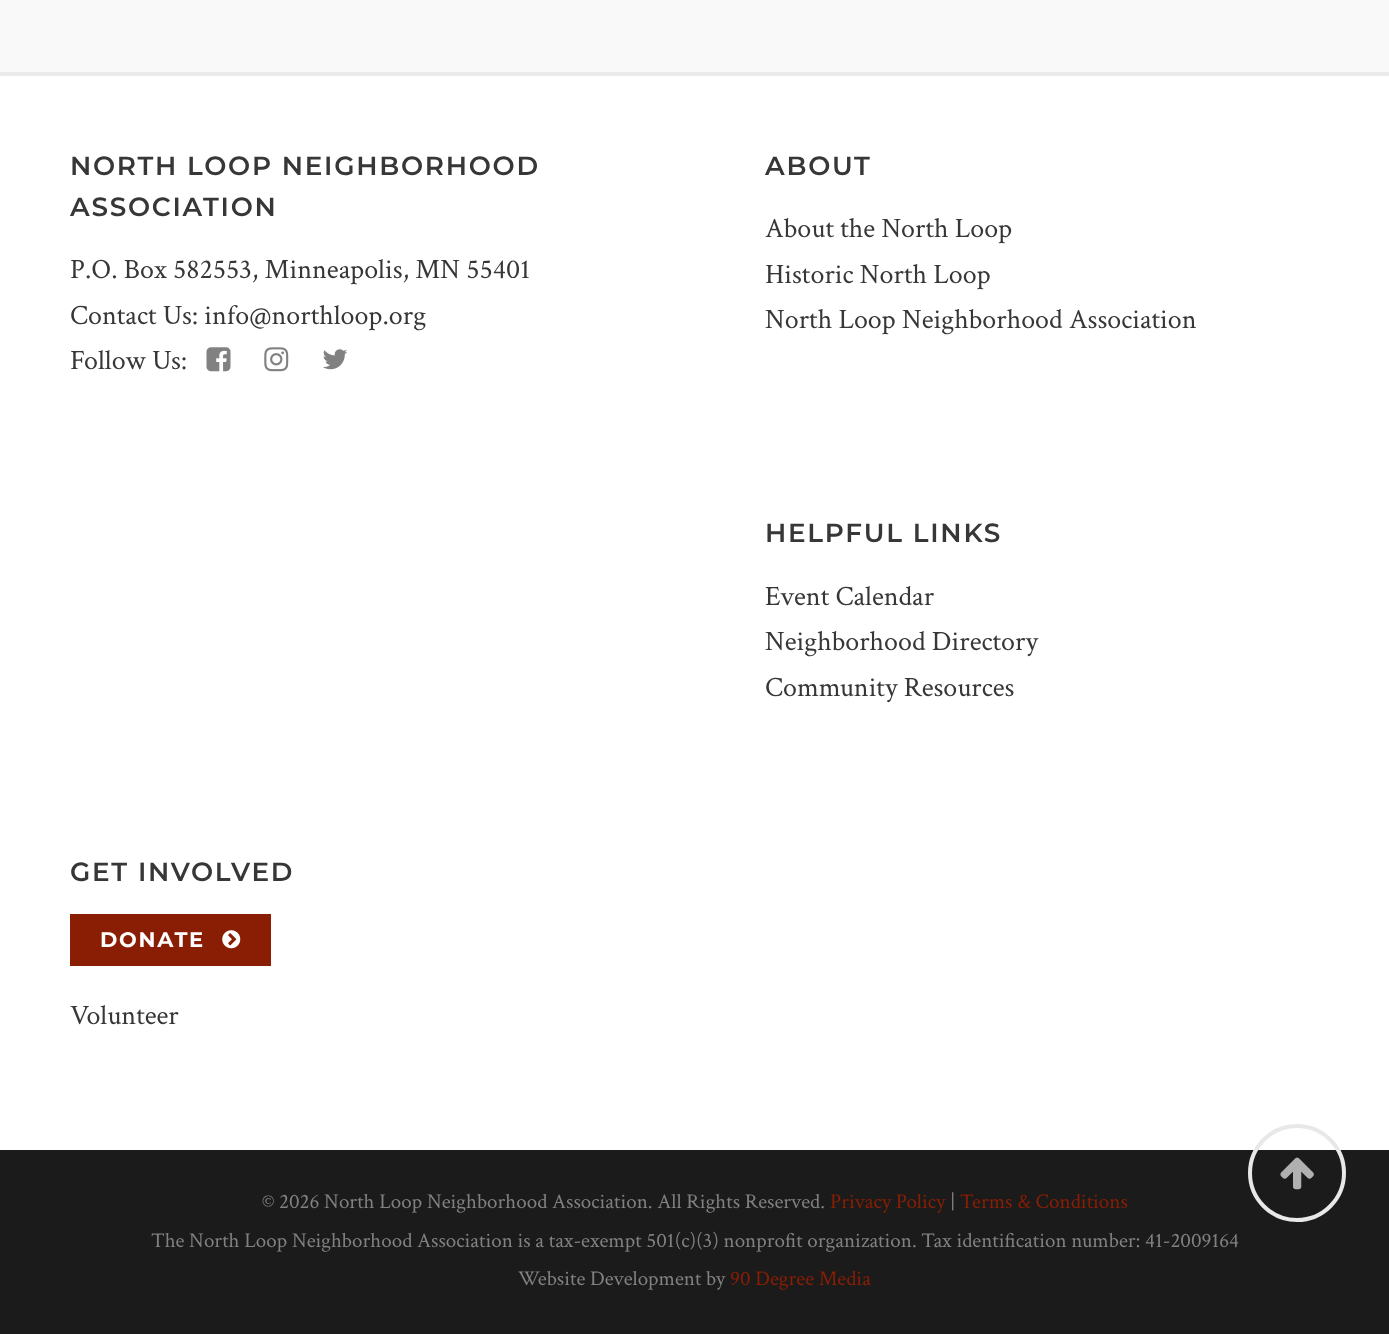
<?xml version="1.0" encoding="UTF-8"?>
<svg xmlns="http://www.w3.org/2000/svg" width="1389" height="1334">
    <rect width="100%" height="100%" fill="#FFFFFF"/>
    <rect x="0" y="0" width="1389" height="72" fill="#F9F9F9"/>
    <rect x="0" y="1150" width="1389" height="184" fill="#1B1B1B"/>
    <circle cx="1297" cy="1173" r="47" fill="none" stroke="#E8E8E8" stroke-width="4"/>
    <image x="1280" y="1157" width="34" height="33" href="img_01.png"/>
    <rect x="0" y="72" width="1389" height="4" fill="#EAEAEA"/>
    <text font-family="Montserrat" font-size="26.25" font-weight="600" letter-spacing="1.75" fill="#373737">
        <tspan x="70" y="175">NORTH LOOP NEIGHBORHOOD</tspan>
        <tspan x="70" y="216">ASSOCIATION</tspan>
    </text>
    <text font-family="Crimson Text" font-size="28" fill="#373737">
        <tspan x="70" y="278">P.O. Box 582553, Minneapolis, MN 55401</tspan>
        <tspan x="70" y="324">Contact Us: info@northloop.org</tspan>
        <tspan x="70" y="369">Follow Us:</tspan>
    </text>
    <image x="206" y="347" width="25" height="25" href="img_02.png"/>
    <image x="264" y="347" width="25" height="25" href="img_03.png"/>
    <image x="323" y="349" width="25" height="21" href="img_04.png"/>
    <text x="765" y="175" font-family="Montserrat" font-size="26.25" font-weight="600" letter-spacing="1.75" fill="#373737">ABOUT</text>
    <text font-family="Crimson Text" font-size="28" fill="#373737">
        <tspan x="765" y="237">About the North Loop</tspan>
        <tspan x="765" y="283">Historic North Loop</tspan>
        <tspan x="765" y="328">North Loop Neighborhood Association</tspan>
    </text>
    <text x="765" y="542" font-family="Montserrat" font-size="26.25" font-weight="600" letter-spacing="1.75" fill="#373737">HELPFUL LINKS</text>
    <text font-family="Crimson Text" font-size="28" fill="#373737">
        <tspan x="765" y="605">Event Calendar</tspan>
        <tspan x="765" y="650">Neighborhood Directory</tspan>
        <tspan x="765" y="696">Community Resources</tspan>
    </text>
    <text x="70" y="881" font-family="Montserrat" font-size="26.25" font-weight="600" letter-spacing="1.75" fill="#373737">GET INVOLVED</text>
    <rect x="70" y="914" width="201" height="52" fill="#8A1E04"/>
    <text x="100" y="947" font-family="Montserrat" font-size="21" font-weight="700" letter-spacing="1.75" fill="#FFFFFF">DONATE</text>
    <image x="222" y="930" width="19" height="19" href="img_05.png"/>
    <text x="70" y="1024" font-family="Crimson Text" font-size="28" fill="#373737">Volunteer</text>
    <text x="262" y="1208" font-family="Crimson Text" font-size="21" fill="#818181">© 2026 North Loop Neighborhood Association. All Rights Reserved.</text>
    <text x="830" y="1208" font-family="Crimson Text" font-size="21" fill="#8A1E04">Privacy Policy</text>
    <text x="950" y="1208" font-family="Crimson Text" font-size="21" fill="#818181">|</text>
    <text x="960" y="1208" font-family="Crimson Text" font-size="21" fill="#8A1E04">Terms &amp; Conditions</text>
    <text x="151" y="1247" font-family="Crimson Text" font-size="21" fill="#818181">The North Loop Neighborhood Association is a tax-exempt 501(c)(3) nonprofit organization. Tax identification number: 41-2009164</text>
    <text x="518" y="1285" font-family="Crimson Text" font-size="21" fill="#818181">Website Development by</text>
    <text x="730" y="1285" font-family="Crimson Text" font-size="21" fill="#8A1E04">90 Degree Media</text>
</svg>
